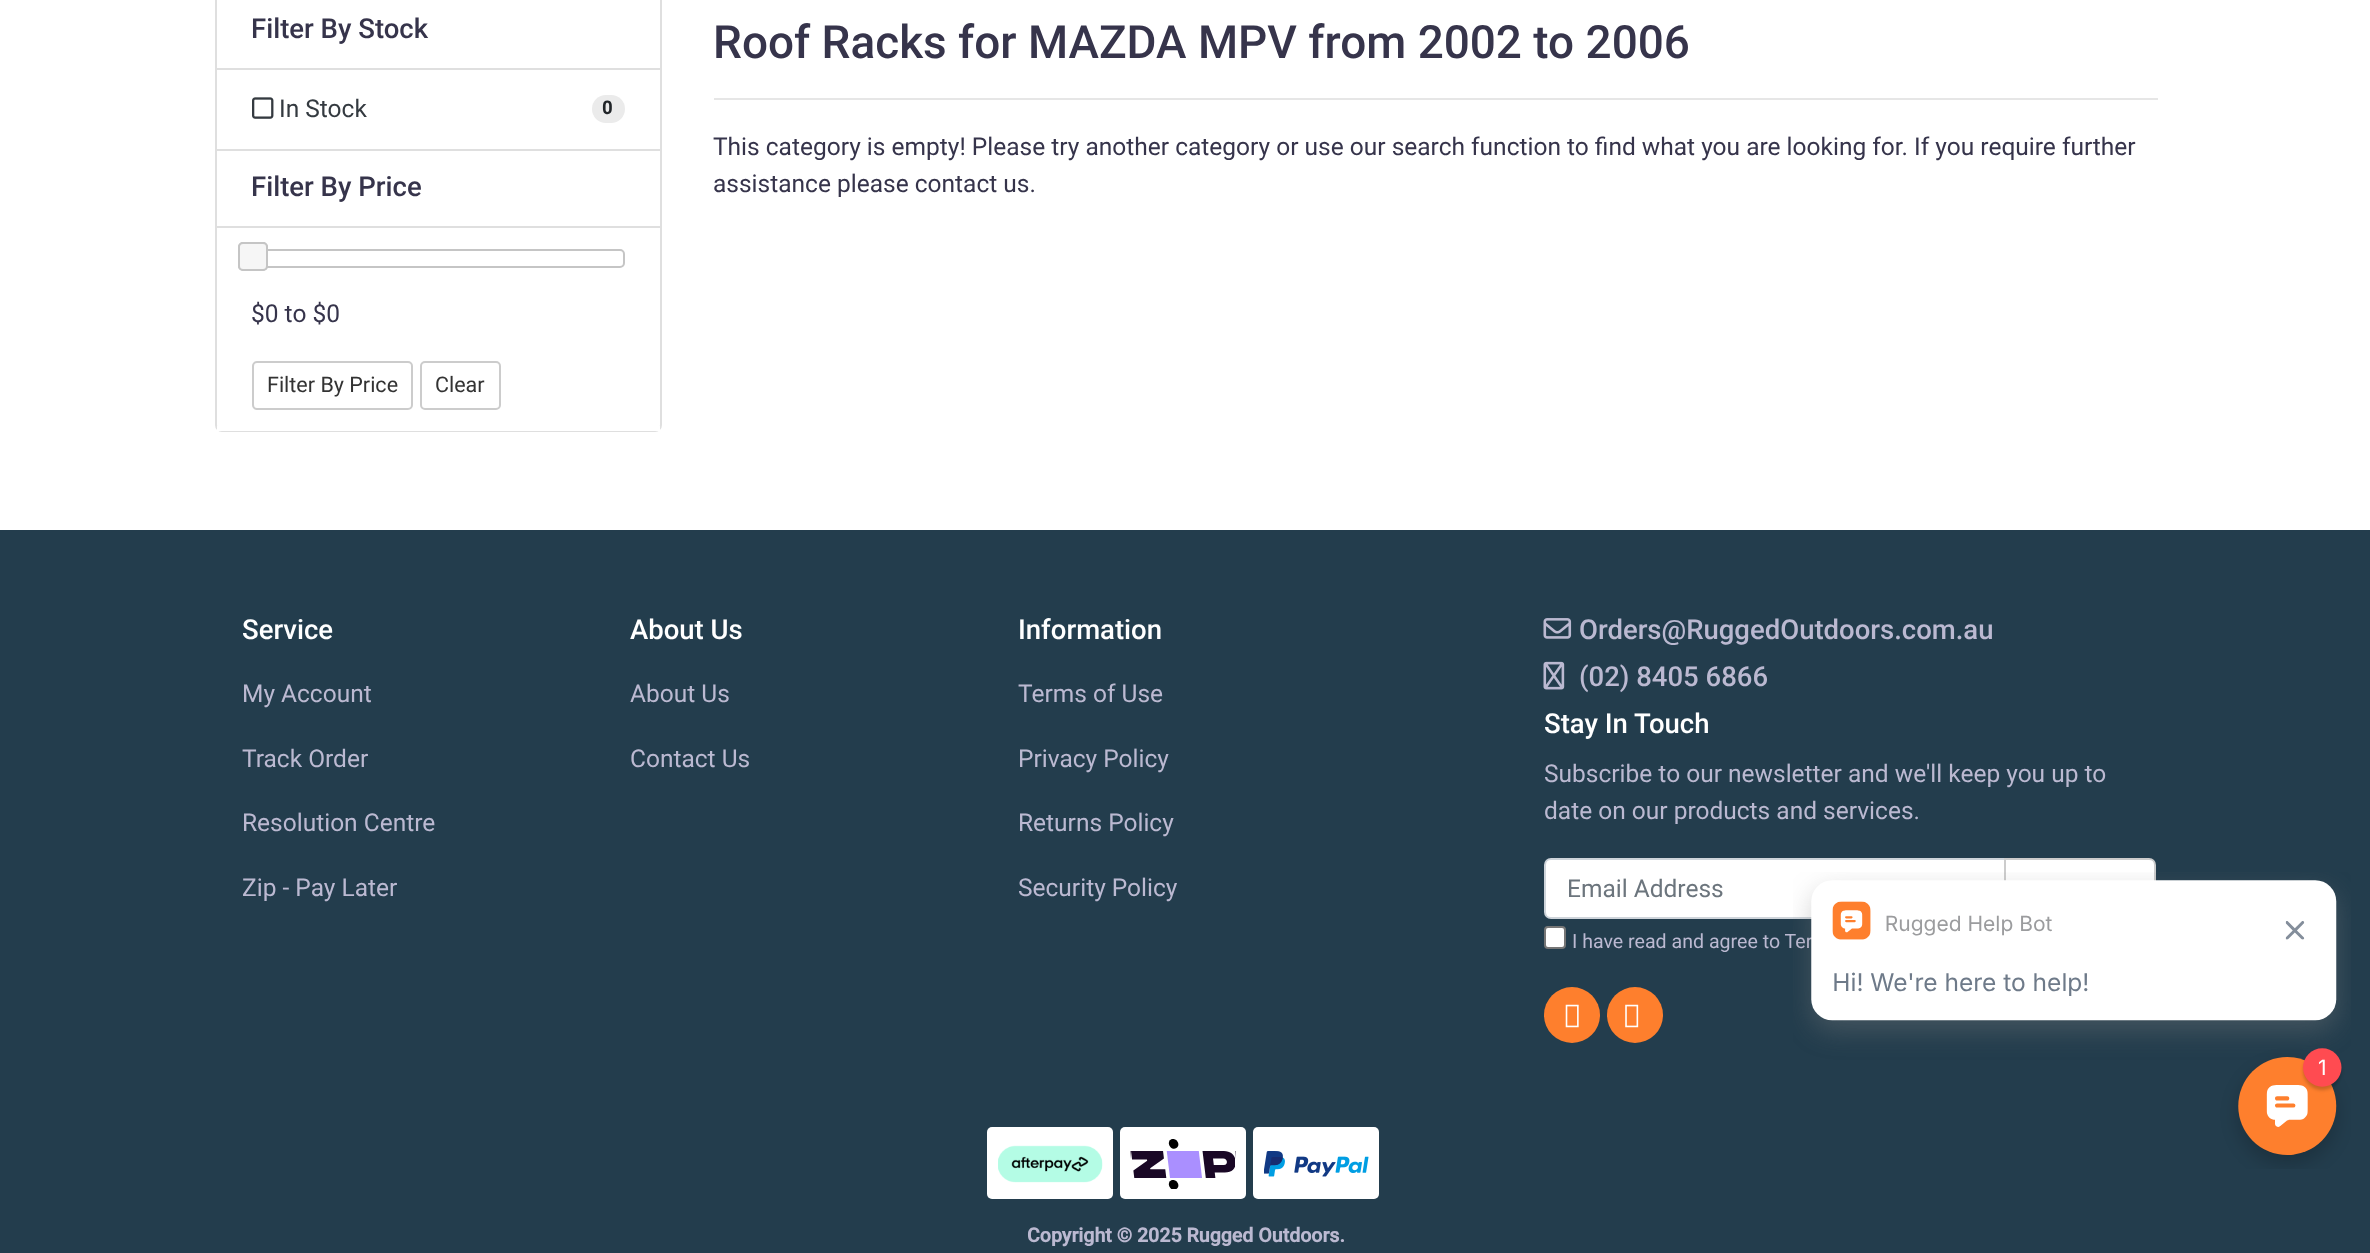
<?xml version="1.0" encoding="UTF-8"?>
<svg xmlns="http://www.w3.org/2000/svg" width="2370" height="1253">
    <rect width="100%" height="100%" fill="#FFFFFF"/>
    <rect x="216" y="-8" width="445" height="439" rx="6" fill="none" stroke="#DFDFDF" stroke-width="2"/>
    <text x="251" y="38" font-family="Roboto" font-size="27.5" font-weight="500" fill="#36344B">Filter By Stock</text>
    <rect x="217" y="68" width="443" height="2" fill="#DFDFDF"/>
    <image x="252" y="97" width="22" height="22" href="img_01.png"/>
    <text x="279" y="117" font-family="Roboto" font-size="24.5" fill="#343A40">In Stock</text>
    <rect x="592" y="95" width="33" height="28" rx="14" fill="#EBEBEB"/>
    <text x="602" y="114" font-family="Roboto" font-size="18" font-weight="700" fill="#212529">0</text>
    <rect x="217" y="149" width="443" height="2" fill="#DFDFDF"/>
    <text x="251" y="196" font-family="Roboto" font-size="27.5" font-weight="500" fill="#36344B">Filter By Price</text>
    <rect x="217" y="426" width="443" height="5" fill="#FFFFFF"/>
    <rect x="217" y="226" width="443" height="2" fill="#DFDFDF"/>
    <rect x="253" y="250" width="371" height="17" rx="4" fill="none" stroke="#C5C5C5" stroke-width="2"/>
    <rect x="239" y="243" width="28" height="27" rx="4" fill="none" stroke="#C5C5C5" stroke-width="2"/>
    <rect x="239" y="243" width="28" height="27" rx="4" fill="#F6F6F6" stroke="#C5C5C5" stroke-width="2"/>
    <text x="251" y="322" font-family="Roboto" font-size="24.5" fill="#36344B">$0 to $0</text>
    <rect x="253" y="362" width="159" height="47" rx="4" fill="none" stroke="#CCCCCC" stroke-width="2"/>
    <text x="267" y="392" font-family="Roboto" font-size="21.5" fill="#333333">Filter By Price</text>
    <rect x="421" y="362" width="79" height="47" rx="4" fill="none" stroke="#CCCCCC" stroke-width="2"/>
    <text x="435" y="392" font-family="Roboto" font-size="21.5" fill="#333333">Clear</text>
    <text x="713" y="58" font-family="Roboto" font-size="45.9" font-weight="500" fill="#36344B">Roof Racks for MAZDA MPV from 2002 to 2006</text>
    <rect x="714" y="98" width="1444" height="2" fill="#E6E6E6"/>
    <text font-family="Roboto" font-size="24.5" fill="#36344B">
        <tspan x="713" y="155">This category is empty! Please try another category or use our search function to find what you are looking for. If you require further</tspan>
        <tspan x="713" y="192">assistance please contact us.</tspan>
    </text>
    <rect x="0" y="530" width="2370" height="723" fill="#233D4D"/>
    <text x="242" y="639" font-family="Roboto" font-size="27.5" font-weight="500" fill="#FFFFFF">Service</text>
    <text x="242" y="702" font-family="Roboto" font-size="24.5" fill="#BBB9D1">My Account</text>
    <text x="242" y="767" font-family="Roboto" font-size="24.5" fill="#BBB9D1">Track Order</text>
    <text x="242" y="831" font-family="Roboto" font-size="24.5" fill="#BBB9D1">Resolution Centre</text>
    <text x="242" y="896" font-family="Roboto" font-size="24.5" fill="#BBB9D1">Zip - Pay Later</text>
    <text x="630" y="639" font-family="Roboto" font-size="27.5" font-weight="500" fill="#FFFFFF">About Us</text>
    <text x="630" y="702" font-family="Roboto" font-size="24.5" fill="#BBB9D1">About Us</text>
    <text x="630" y="767" font-family="Roboto" font-size="24.5" fill="#BBB9D1">Contact Us</text>
    <text x="1018" y="639" font-family="Roboto" font-size="27.5" font-weight="500" fill="#FFFFFF">Information</text>
    <text x="1018" y="702" font-family="Roboto" font-size="24.5" fill="#BBB9D1">Terms of Use</text>
    <text x="1018" y="767" font-family="Roboto" font-size="24.5" fill="#BBB9D1">Privacy Policy</text>
    <text x="1018" y="831" font-family="Roboto" font-size="24.5" fill="#BBB9D1">Returns Policy</text>
    <text x="1018" y="896" font-family="Roboto" font-size="24.5" fill="#BBB9D1">Security Policy</text>
    <image x="1543" y="618" width="29" height="21" href="img_02.png"/>
    <text x="1579" y="639" font-family="Roboto" font-size="27.5" font-weight="500" fill="#BBB9D1">Orders@RuggedOutdoors.com.au</text>
    <image x="1543" y="661" width="22" height="29" href="img_03.png"/>
    <text x="1579" y="686" font-family="Roboto" font-size="27.5" font-weight="500" fill="#BBB9D1">(02) 8405 6866</text>
    <text x="1544" y="733" font-family="Roboto" font-size="27.5" font-weight="500" fill="#FFFFFF">Stay In Touch</text>
    <text font-family="Roboto" font-size="24.5" fill="#BBB9D1">
        <tspan x="1544" y="782">Subscribe to our newsletter and we'll keep you up to</tspan>
        <tspan x="1544" y="819">date on our products and services.</tspan>
    </text>
    <path d="M 1551 859 H 2005 V 918 H 1551 C 1547.5 918 1545 915.5 1545 912 V 865 C 1545 861.5 1547.5 859 1551 859 Z" fill="#FFFFFF" stroke="#CED4DA" stroke-width="2"/>
    <text x="1567" y="897" font-family="Roboto" font-size="24.5" fill="#6C757D">Email Address</text>
    <path d="M 2005 859 H 2149 C 2152.5 859 2155 861.5 2155 865 V 912 C 2155 915.5 2152.5 918 2149 918 H 2005 Z" fill="#FFFFFF" stroke="#CCCCCC" stroke-width="2"/>
    <rect x="1545" y="927" width="20" height="21" rx="3" fill="#FFFFFF" stroke="#767676" stroke-width="2"/>
    <text x="1572" y="948" font-family="Roboto" font-size="19.6" fill="#BBB9D1">I have read and agree to Ter</text>
    <circle cx="1572" cy="1015" r="28" fill="#FE7F2D"/>
    <image x="1565" y="1004" width="14" height="24" href="img_04.png"/>
    <circle cx="1635" cy="1015" r="28" fill="#FE7F2D"/>
    <image x="1625" y="1004" width="14" height="24" href="img_05.png"/>
    <rect x="987" y="1127" width="126" height="72" rx="5" fill="#FFFFFF"/>
    <image x="998" y="1145" width="105" height="38" href="img_06.png"/>
    <rect x="1120" y="1127" width="126" height="72" rx="5" fill="#FFFFFF"/>
    <image x="1130" y="1139" width="106" height="50" href="img_07.png"/>
    <rect x="1253" y="1127" width="126" height="72" rx="5" fill="#FFFFFF"/>
    <image x="1264" y="1151" width="105" height="26" href="img_08.png"/>
    <text x="1027" y="1242" font-family="Roboto" font-size="19.6" font-weight="700" fill="#BBB9D1">Copyright © 2025 Rugged Outdoors.</text>
    <image x="1793" y="872" width="558" height="297" href="img_09.png"/>
</svg>
